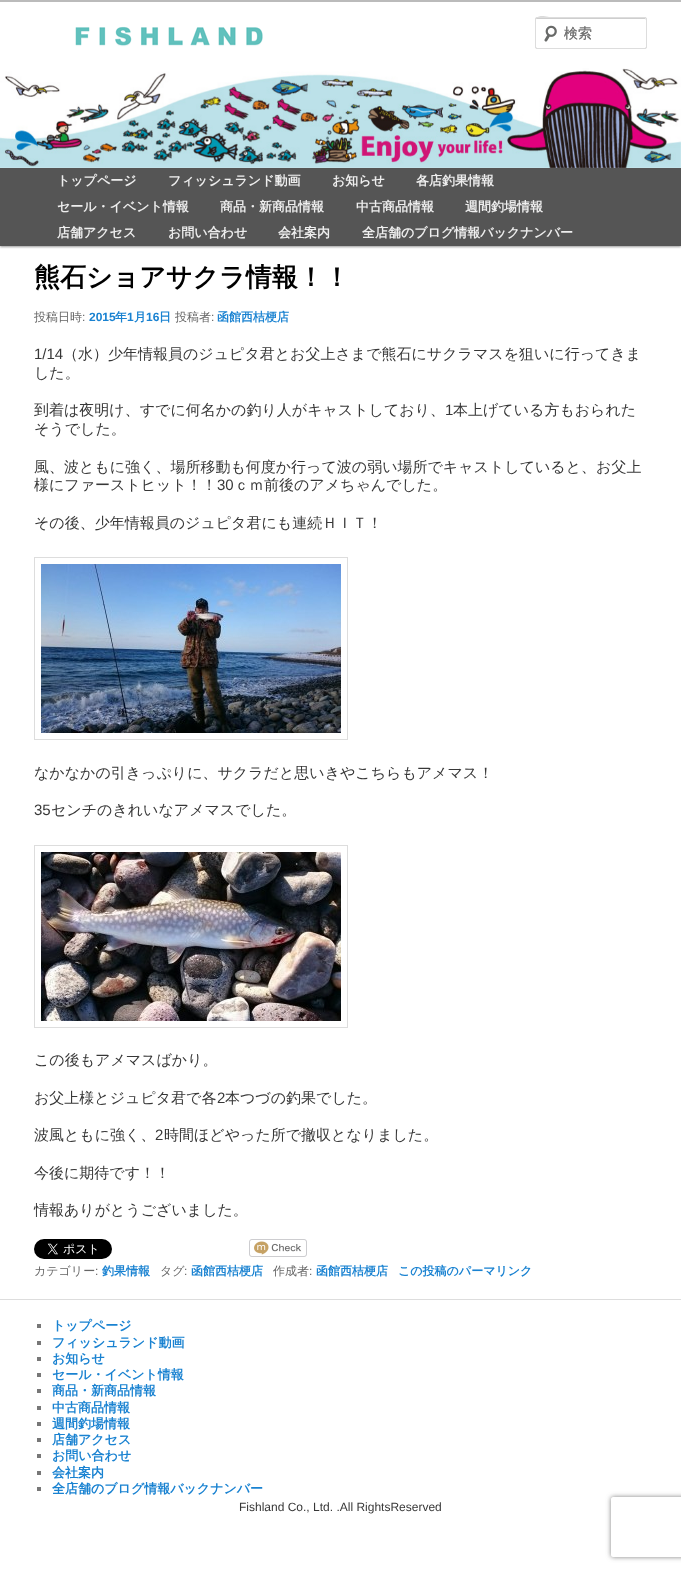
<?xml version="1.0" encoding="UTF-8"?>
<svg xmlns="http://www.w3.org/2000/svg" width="681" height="1571">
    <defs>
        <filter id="blur1" x="-50%" y="-200%" width="200%" height="500%"><feGaussianBlur stdDeviation="1"/></filter>
        <clipPath id="clip1"><path d="M 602 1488 H 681 V 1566 H 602 Z M 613 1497 H 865 C 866 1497 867 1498 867 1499 V 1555 C 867 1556 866 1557 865 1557 H 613 C 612 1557 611 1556 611 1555 V 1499 C 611 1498 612 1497 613 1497 Z" clip-rule="evenodd"/></clipPath>
        <filter id="blur2" x="-50%" y="-200%" width="200%" height="500%"><feGaussianBlur stdDeviation="2.5"/></filter>
    </defs>
    <rect width="100%" height="100%" fill="#FFFFFF"/>
    <rect x="0" y="0" width="681" height="2" fill="#BBBBBB"/>
    <rect x="0" y="169" width="681" height="78" fill="#000000" fill-opacity="0.4" filter="url(#blur1)"/>
    <rect x="0" y="168" width="681" height="78" fill="#555555"/>
    <image x="544" y="25" width="13" height="17" href="img_03.png"/>
    <path d="M 537 19 H 646 V 20 L 645 18 H 555 C 551 18 536 13 536 20 C 536 19 536 19 537 19 Z" fill="#E6E6E6"/>
    <rect x="535.5" y="17.5" width="111" height="31" rx="1.5" fill="none" stroke="#DDDDDD"/>
    <image x="544" y="25" width="13" height="17" href="img_01.png"/>
    <path d="M 537 19 H 646 V 20 L 645 18 H 555 C 551 18 536 13 536 20 C 536 19 536 19 537 19 Z" fill="#000000" fill-opacity="0.1"/>
    <rect x="535.5" y="17.5" width="111" height="31" rx="1.5" fill="none" stroke="#DDDDDD"/>
    <text x="564" y="38" font-family="WenQuanYi Zen Hei" font-size="14" font-weight="500" fill="#757575">検索</text>
    <text x="564" y="38" font-family="WenQuanYi Zen Hei" font-size="14" font-weight="500" fill="#757575">検索</text>
    <text x="57" y="185" font-family="WenQuanYi Zen Hei" font-size="13" font-weight="700" fill="#EEEEEE">トップページ</text>
    <text x="168" y="185" font-family="WenQuanYi Zen Hei" font-size="13" font-weight="700" fill="#EEEEEE">フィッシュランド動画</text>
    <text x="332" y="185" font-family="WenQuanYi Zen Hei" font-size="13" font-weight="700" fill="#EEEEEE">お知らせ</text>
    <text x="416" y="185" font-family="WenQuanYi Zen Hei" font-size="13" font-weight="700" fill="#EEEEEE">各店釣果情報</text>
    <text x="57" y="211" font-family="WenQuanYi Zen Hei" font-size="13" font-weight="700" fill="#EEEEEE">セール・イベント情報</text>
    <text x="220" y="211" font-family="WenQuanYi Zen Hei" font-size="13" font-weight="700" fill="#EEEEEE">商品・新商品情報</text>
    <text x="356" y="211" font-family="WenQuanYi Zen Hei" font-size="13" font-weight="700" fill="#EEEEEE">中古商品情報</text>
    <text x="465" y="211" font-family="WenQuanYi Zen Hei" font-size="13" font-weight="700" fill="#EEEEEE">週間釣場情報</text>
    <text x="57" y="237" font-family="WenQuanYi Zen Hei" font-size="13" font-weight="700" fill="#EEEEEE">店舗アクセス</text>
    <text x="168" y="237" font-family="WenQuanYi Zen Hei" font-size="13" font-weight="700" fill="#EEEEEE">お問い合わせ</text>
    <text x="278" y="237" font-family="WenQuanYi Zen Hei" font-size="13" font-weight="700" fill="#EEEEEE">会社案内</text>
    <text x="362" y="237" font-family="WenQuanYi Zen Hei" font-size="13" font-weight="700" fill="#EEEEEE">全店舗のブログ情報バックナンバー</text>
    <image x="75" y="26" width="188" height="21" href="img_02.png"/>
    <image x="0" y="68" width="681" height="100" href="img_04.png"/>
    <text x="34" y="286" font-family="WenQuanYi Zen Hei" font-size="26" font-weight="700" fill="#000000">熊石ショアサクラ情報！！</text>
    <text x="34" y="321" font-family="WenQuanYi Zen Hei" font-size="12" font-weight="500" fill="#666666">投稿日時</text>
    <text x="82" y="321" font-family="Liberation Sans" font-size="12" fill="#666666">:</text>
    <text x="89" y="321" font-family="Liberation Sans" font-size="12" font-weight="700" fill="#1982D1">2015</text>
    <text x="115" y="321" font-family="WenQuanYi Zen Hei" font-size="12" font-weight="700" fill="#1982D1">年</text>
    <text x="127" y="321" font-family="Liberation Sans" font-size="12" font-weight="700" fill="#1982D1">1</text>
    <text x="134" y="321" font-family="WenQuanYi Zen Hei" font-size="12" font-weight="700" fill="#1982D1">月</text>
    <text x="146" y="321" font-family="Liberation Sans" font-size="12" font-weight="700" fill="#1982D1">16</text>
    <text x="159" y="321" font-family="WenQuanYi Zen Hei" font-size="12" font-weight="700" fill="#1982D1">日</text>
    <text x="175" y="321" font-family="WenQuanYi Zen Hei" font-size="12" font-weight="500" fill="#666666">投稿者</text>
    <text x="211" y="321" font-family="Liberation Sans" font-size="12" fill="#666666">:</text>
    <text x="217" y="321" font-family="WenQuanYi Zen Hei" font-size="12" font-weight="700" fill="#1982D1">函館西桔梗店</text>
    <text x="34" y="359" font-family="Liberation Sans" font-size="15" fill="#373737">1/14</text>
    <text x="63" y="359" font-family="WenQuanYi Zen Hei" font-size="15" font-weight="500" fill="#373737">（水）少年情報員のジュピタ君とお父上さまで熊石にサクラマスを狙いに行ってきま</text>
    <text x="34" y="378" font-family="WenQuanYi Zen Hei" font-size="15" font-weight="500" fill="#373737">した。</text>
    <text x="34" y="415" font-family="WenQuanYi Zen Hei" font-size="15" font-weight="500" fill="#373737">到着は夜明け、すでに何名かの釣り人がキャストしており、</text>
    <text x="445" y="415" font-family="Liberation Sans" font-size="15" fill="#373737">1</text>
    <text x="453" y="415" font-family="WenQuanYi Zen Hei" font-size="15" font-weight="500" fill="#373737">本上げている方もおられた</text>
    <text x="34" y="434" font-family="WenQuanYi Zen Hei" font-size="15" font-weight="500" fill="#373737">そうでした。</text>
    <text font-family="WenQuanYi Zen Hei" font-size="15" font-weight="500" fill="#373737">
        <tspan x="34" y="472">風、波ともに強く、場所移動も何度か行って波の弱い場所でキャストしていると、お父上</tspan>
        <tspan x="34" y="490">様にファーストヒット！！</tspan>
    </text>
    <text x="217" y="490" font-family="Liberation Sans" font-size="15" fill="#373737">30</text>
    <text x="234" y="490" font-family="WenQuanYi Zen Hei" font-size="15" font-weight="500" fill="#373737">ｃｍ前後のアメちゃんでした。</text>
    <text x="34" y="528" font-family="WenQuanYi Zen Hei" font-size="15" font-weight="500" fill="#373737">その後、少年情報員のジュピタ君にも連続ＨＩＴ！</text>
    <rect x="34.5" y="557.5" width="313" height="182" fill="none" stroke="#DDDDDD"/>
    <image x="41" y="564" width="300" height="169" href="img_05.png"/>
    <text x="34" y="778" font-family="WenQuanYi Zen Hei" font-size="15" font-weight="500" fill="#373737">なかなかの引きっぷりに、サクラだと思いきやこちらもアメマス！</text>
    <text x="34" y="815" font-family="Liberation Sans" font-size="15" fill="#373737">35</text>
    <text x="51" y="815" font-family="WenQuanYi Zen Hei" font-size="15" font-weight="500" fill="#373737">センチのきれいなアメマスでした。</text>
    <rect x="34.5" y="845.5" width="313" height="182" fill="none" stroke="#DDDDDD"/>
    <image x="41" y="852" width="300" height="169" href="img_06.png"/>
    <text x="34" y="1065" font-family="WenQuanYi Zen Hei" font-size="15" font-weight="500" fill="#373737">この後もアメマスばかり。</text>
    <text x="34" y="1103" font-family="WenQuanYi Zen Hei" font-size="15" font-weight="500" fill="#373737">お父上様とジュピタ君で各</text>
    <text x="217" y="1103" font-family="Liberation Sans" font-size="15" fill="#373737">2</text>
    <text x="225" y="1103" font-family="WenQuanYi Zen Hei" font-size="15" font-weight="500" fill="#373737">本つづの釣果でした。</text>
    <text x="34" y="1140" font-family="WenQuanYi Zen Hei" font-size="15" font-weight="500" fill="#373737">波風ともに強く、</text>
    <text x="155" y="1140" font-family="Liberation Sans" font-size="15" fill="#373737">2</text>
    <text x="164" y="1140" font-family="WenQuanYi Zen Hei" font-size="15" font-weight="500" fill="#373737">時間ほどやった所で撤収となりました。</text>
    <text x="34" y="1178" font-family="WenQuanYi Zen Hei" font-size="15" font-weight="500" fill="#373737">今後に期待です！！</text>
    <text x="34" y="1215" font-family="WenQuanYi Zen Hei" font-size="15" font-weight="500" fill="#373737">情報ありがとうございました。</text>
    <image x="34" y="1239" width="78" height="20" href="img_07.png"/>
    <image x="249" y="1239" width="58" height="18" href="img_08.png"/>
    <text x="34" y="1275" font-family="WenQuanYi Zen Hei" font-size="12" font-weight="500" fill="#666666">カテゴリー</text>
    <text x="95" y="1275" font-family="Liberation Sans" font-size="12" fill="#666666">:</text>
    <text x="102" y="1275" font-family="WenQuanYi Zen Hei" font-size="12" font-weight="700" fill="#1982D1">釣果情報</text>
    <text x="160" y="1275" font-family="WenQuanYi Zen Hei" font-size="12" font-weight="500" fill="#666666">タグ</text>
    <text x="184" y="1275" font-family="Liberation Sans" font-size="12" fill="#666666">:</text>
    <text x="191" y="1275" font-family="WenQuanYi Zen Hei" font-size="12" font-weight="700" fill="#1982D1">函館西桔梗店</text>
    <text x="273" y="1275" font-family="WenQuanYi Zen Hei" font-size="12" font-weight="500" fill="#666666">作成者</text>
    <text x="309" y="1275" font-family="Liberation Sans" font-size="12" fill="#666666">:</text>
    <text x="316" y="1275" font-family="WenQuanYi Zen Hei" font-size="12" font-weight="700" fill="#1982D1">函館西桔梗店</text>
    <text x="398" y="1275" font-family="WenQuanYi Zen Hei" font-size="12" font-weight="700" fill="#1982D1">この投稿のパーマリンク</text>
    <rect x="0" y="1299" width="681" height="1" fill="#DDDDDD"/>
    <rect x="37" y="1324" width="4" height="4" fill="#777777"/>
    <text x="52" y="1330" font-family="WenQuanYi Zen Hei" font-size="13" font-weight="700" fill="#1982D1">トップページ</text>
    <rect x="37" y="1341" width="4" height="4" fill="#777777"/>
    <text x="52" y="1347" font-family="WenQuanYi Zen Hei" font-size="13" font-weight="700" fill="#1982D1">フィッシュランド動画</text>
    <rect x="37" y="1357" width="4" height="4" fill="#777777"/>
    <text x="52" y="1363" font-family="WenQuanYi Zen Hei" font-size="13" font-weight="700" fill="#1982D1">お知らせ</text>
    <rect x="37" y="1373" width="4" height="4" fill="#777777"/>
    <text x="52" y="1379" font-family="WenQuanYi Zen Hei" font-size="13" font-weight="700" fill="#1982D1">セール・イベント情報</text>
    <rect x="37" y="1389" width="4" height="4" fill="#777777"/>
    <text x="52" y="1395" font-family="WenQuanYi Zen Hei" font-size="13" font-weight="700" fill="#1982D1">商品・新商品情報</text>
    <rect x="37" y="1406" width="4" height="4" fill="#777777"/>
    <text x="52" y="1412" font-family="WenQuanYi Zen Hei" font-size="13" font-weight="700" fill="#1982D1">中古商品情報</text>
    <rect x="37" y="1422" width="4" height="4" fill="#777777"/>
    <text x="52" y="1428" font-family="WenQuanYi Zen Hei" font-size="13" font-weight="700" fill="#1982D1">週間釣場情報</text>
    <rect x="37" y="1438" width="4" height="4" fill="#777777"/>
    <text x="52" y="1444" font-family="WenQuanYi Zen Hei" font-size="13" font-weight="700" fill="#1982D1">店舗アクセス</text>
    <rect x="37" y="1454" width="4" height="4" fill="#777777"/>
    <text x="52" y="1460" font-family="WenQuanYi Zen Hei" font-size="13" font-weight="700" fill="#1982D1">お問い合わせ</text>
    <rect x="37" y="1471" width="4" height="4" fill="#777777"/>
    <text x="52" y="1477" font-family="WenQuanYi Zen Hei" font-size="13" font-weight="700" fill="#1982D1">会社案内</text>
    <rect x="37" y="1487" width="4" height="4" fill="#777777"/>
    <text x="52" y="1493" font-family="WenQuanYi Zen Hei" font-size="13" font-weight="700" fill="#1982D1">全店舗のブログ情報バックナンバー</text>
    <text x="239" y="1511" font-family="Liberation Sans" font-size="12" fill="#373737">Fishland Co., Ltd. .All RightsReserved</text>
    <g clip-path="url(#clip1)">
        <rect x="611" y="1497" width="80" height="60" rx="2" fill="#808080" filter="url(#blur2)"/>
    </g>
</svg>
